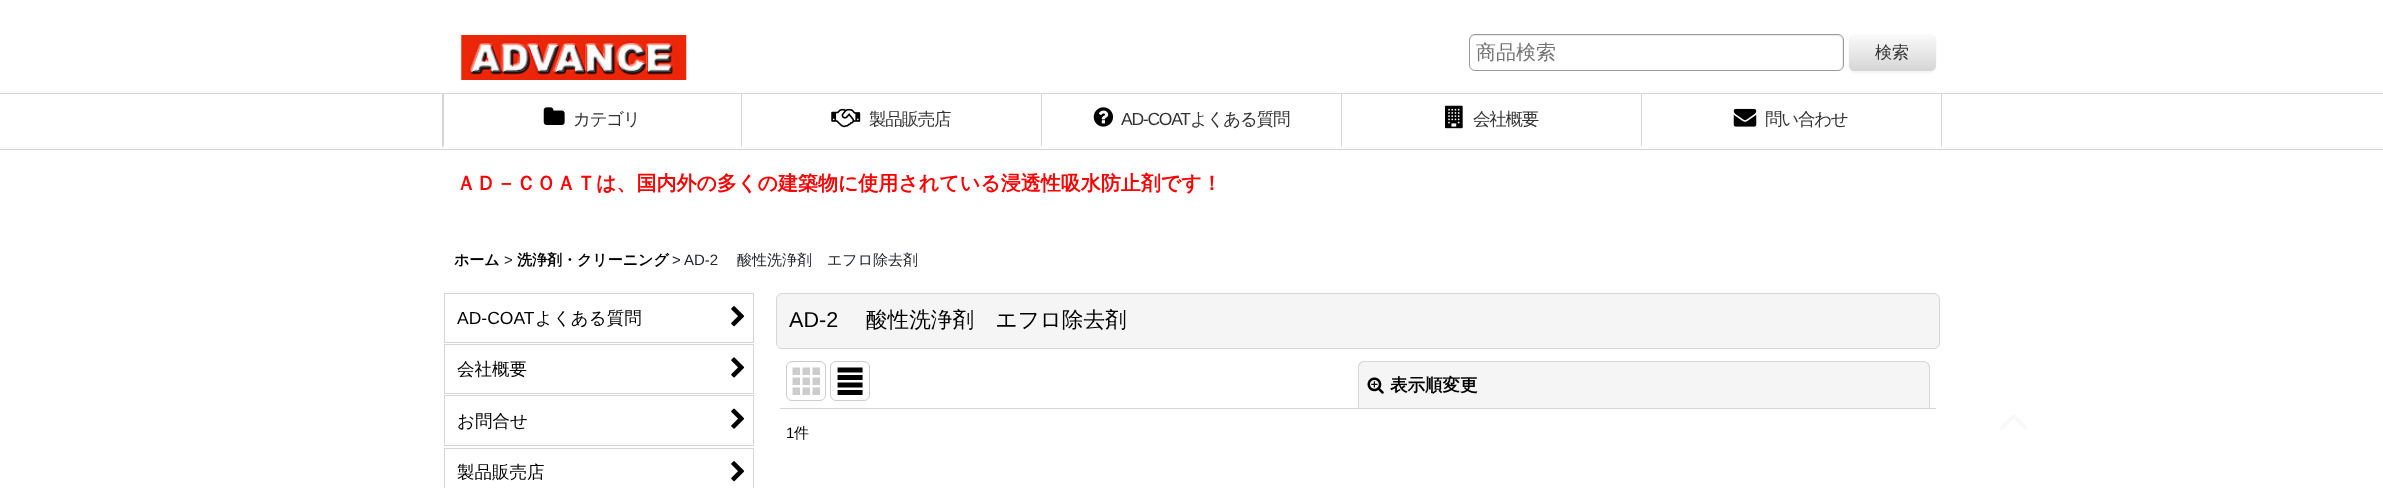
<?xml version="1.0" encoding="UTF-8"?>
<svg xmlns="http://www.w3.org/2000/svg" width="2383" height="488">
    <defs>
        <filter id="blur1" x="-50%" y="-200%" width="200%" height="500%"><feGaussianBlur stdDeviation="1"/></filter>
    </defs>
    <rect width="100%" height="100%" fill="#FFFFFF"/>
    <rect x="0" y="93" width="2383" height="1" fill="#D6D6D6"/>
    <image x="461" y="35" width="226" height="45" href="img_01.png"/>
    <path d="M 1475 36 H 1838 C 1840 36 1842 38 1842 41 V 66 L 1841 69 C 1842 68 1843 66 1843 65 V 40 C 1843 37 1841 35 1838 35 H 1475 C 1472 35 1470 37 1470 40 V 41 C 1470 38 1472 36 1475 36 Z" fill="#ECECEC"/>
    <rect x="1469.5" y="34.5" width="374" height="36" rx="5.5" fill="none" stroke="#999999"/>
    <text x="1476" y="59" font-family="WenQuanYi Zen Hei" font-size="20" font-weight="500" fill="#757575">商品検索</text>
    <rect x="1849" y="35" width="87" height="38" rx="6" fill="#000000" fill-opacity="0.05" filter="url(#blur1)"/>
    <rect x="1849" y="34" width="87" height="37" rx="6" fill="#F9F9F9"/>
    <image x="1849" y="37" width="87" height="34" href="img_02.png"/>
    <text x="1875" y="58" font-family="WenQuanYi Zen Hei" font-size="17" font-weight="500" fill="#333333">検索</text>
    <rect x="0" y="149" width="2383" height="1" fill="#D6D6D6"/>
    <path d="M 742 94 V 149 L 741 145 V 94 Z" fill="#D6D6D6"/>
    <path d="M 742 149 H 442 L 444 145 H 741 Z" fill="#FFFFFF"/>
    <path d="M 442 149 V 94 H 444 V 145 Z" fill="#D6D6D6"/>
    <image x="543" y="107" width="22" height="18" href="img_03.png"/>
    <text x="573" y="125" font-family="WenQuanYi Zen Hei" font-size="17.5" font-weight="500" letter-spacing="-1.25" fill="#333333">カテゴリ</text>
    <path d="M 1042 94 V 149 L 1041 145 V 94 Z" fill="#D6D6D6"/>
    <path d="M 1042 149 H 742 V 145 H 1041 Z" fill="#FFFFFF"/>
    <image x="831" y="108" width="30" height="20" href="img_04.png"/>
    <text x="869" y="125" font-family="WenQuanYi Zen Hei" font-size="17.5" font-weight="500" letter-spacing="-1.25" fill="#333333">製品販売店</text>
    <path d="M 1342 94 V 149 L 1341 145 V 94 Z" fill="#D6D6D6"/>
    <path d="M 1342 149 H 1042 V 145 H 1341 Z" fill="#FFFFFF"/>
    <image x="1093" y="107" width="20" height="20" href="img_05.png"/>
    <text x="1121" y="125" font-family="Liberation Sans" font-size="17.5" letter-spacing="-1.25" fill="#333333">AD‐COAT</text>
    <text x="1190" y="125" font-family="WenQuanYi Zen Hei" font-size="17.5" font-weight="500" letter-spacing="-1.25" fill="#333333">よくある質問</text>
    <path d="M 1642 94 V 149 L 1641 145 V 94 Z" fill="#D6D6D6"/>
    <path d="M 1642 149 H 1342 V 145 H 1641 Z" fill="#FFFFFF"/>
    <image x="1445" y="105" width="18" height="24" href="img_06.png"/>
    <text x="1473" y="125" font-family="WenQuanYi Zen Hei" font-size="17.5" font-weight="500" letter-spacing="-1.25" fill="#333333">会社概要</text>
    <path d="M 1942 94 V 149 L 1941 145 V 94 Z" fill="#D6D6D6"/>
    <path d="M 1942 149 H 1642 V 145 H 1941 Z" fill="#FFFFFF"/>
    <image x="1733" y="108" width="24" height="19" href="img_07.png"/>
    <text x="1765" y="125" font-family="WenQuanYi Zen Hei" font-size="17.5" font-weight="500" letter-spacing="-1.25" fill="#333333">問い合わせ</text>
    <text x="456" y="190" font-family="WenQuanYi Zen Hei" font-size="20" font-weight="700" fill="#FF0000">ＡＤ－ＣＯＡＴは、国内外の多くの建築物に使用されている浸透性吸水防止剤です！</text>
    <text x="454" y="265" font-family="WenQuanYi Zen Hei" font-size="15" font-weight="700" fill="#000000">ホーム</text>
    <text x="504" y="265" font-family="Liberation Sans" font-size="15" fill="#212529">&gt;</text>
    <text x="517" y="265" font-family="WenQuanYi Zen Hei" font-size="15" font-weight="700" fill="#000000">洗浄剤・クリーニング</text>
    <text x="672" y="265" font-family="Liberation Sans" font-size="15" fill="#212529">&gt;</text>
    <text x="684" y="265" font-family="Liberation Sans" font-size="15" fill="#212529">AD-2</text>
    <text x="737" y="265" font-family="WenQuanYi Zen Hei" font-size="15" font-weight="500" fill="#212529">酸性洗浄剤　エフロ除去剤</text>
    <rect x="444.5" y="293.5" width="309" height="49" fill="none" stroke="#D6D6D6"/>
    <text x="457" y="324" font-family="Liberation Sans" font-size="17.5" fill="#000000">AD‐COAT</text>
    <text x="535" y="324" font-family="WenQuanYi Zen Hei" font-size="17.5" font-weight="500" fill="#000000">よくある質問</text>
    <image x="731" y="306" width="14" height="21" href="img_08.png"/>
    <rect x="444.5" y="344.5" width="309" height="49" fill="none" stroke="#D6D6D6"/>
    <text x="457" y="375" font-family="WenQuanYi Zen Hei" font-size="17.5" font-weight="500" fill="#000000">会社概要</text>
    <image x="731" y="357" width="14" height="21" href="img_09.png"/>
    <rect x="444.5" y="395.5" width="309" height="50" fill="none" stroke="#D6D6D6"/>
    <text x="457" y="427" font-family="WenQuanYi Zen Hei" font-size="17.5" font-weight="500" fill="#000000">お問合せ</text>
    <image x="731" y="408" width="14" height="21" href="img_10.png"/>
    <rect x="444.5" y="448.5" width="309" height="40" fill="none" stroke="#D6D6D6"/>
    <text x="457" y="478" font-family="WenQuanYi Zen Hei" font-size="17.5" font-weight="500" fill="#000000">製品販売店</text>
    <image x="731" y="461" width="14" height="21" href="img_08.png"/>
    <rect x="776.5" y="293.5" width="1163" height="55" rx="5.5" fill="#F5F5F5" stroke="#D6D6D6"/>
    <text x="789" y="327" font-family="Liberation Sans" font-size="21.6" fill="#000000">AD-2</text>
    <text x="866" y="327" font-family="WenQuanYi Zen Hei" font-size="21.6" font-weight="500" fill="#000000">酸性洗浄剤　エフロ除去剤</text>
    <rect x="780" y="408" width="1156" height="1" fill="#D6D6D6"/>
    <rect x="786.5" y="361.5" width="39" height="39" rx="5.5" fill="none" stroke="#CCCCCC"/>
    <image x="792" y="367" width="28" height="28" href="img_11.png"/>
    <rect x="830.5" y="361.5" width="39" height="39" rx="5.5" fill="none" stroke="#CCCCCC"/>
    <image x="837" y="367" width="26" height="28" href="img_12.png"/>
    <path d="M 1364 361 H 1924 C 1927.5 361 1930 363.5 1930 367 V 408 H 1358 V 367 C 1358 363.5 1360.5 361 1364 361 Z" fill="#F5F5F5"/>
    <path d="M 1364 361 H 1924 C 1927 361 1930 364 1930 368 V 408 H 1358 V 368 C 1358 364 1360 361 1364 361 Z M 1364 362 H 1924 C 1927 362 1929 365 1929 368 V 408 H 1359 V 368 C 1359 365 1361 362 1364 362 Z" fill="#D6D6D6" fill-rule="evenodd"/>
    <image x="1367" y="377" width="17" height="17" href="img_13.png"/>
    <text x="1390" y="391" font-family="WenQuanYi Zen Hei" font-size="17.5" font-weight="700" fill="#000000">表示順変更</text>
    <text x="786" y="438" font-family="Liberation Sans" font-size="15" fill="#000000">1</text>
    <text x="794" y="438" font-family="WenQuanYi Zen Hei" font-size="15" font-weight="500" fill="#000000">件</text>
    <image x="2000" y="414" width="27" height="16" href="img_14.png"/>
</svg>
